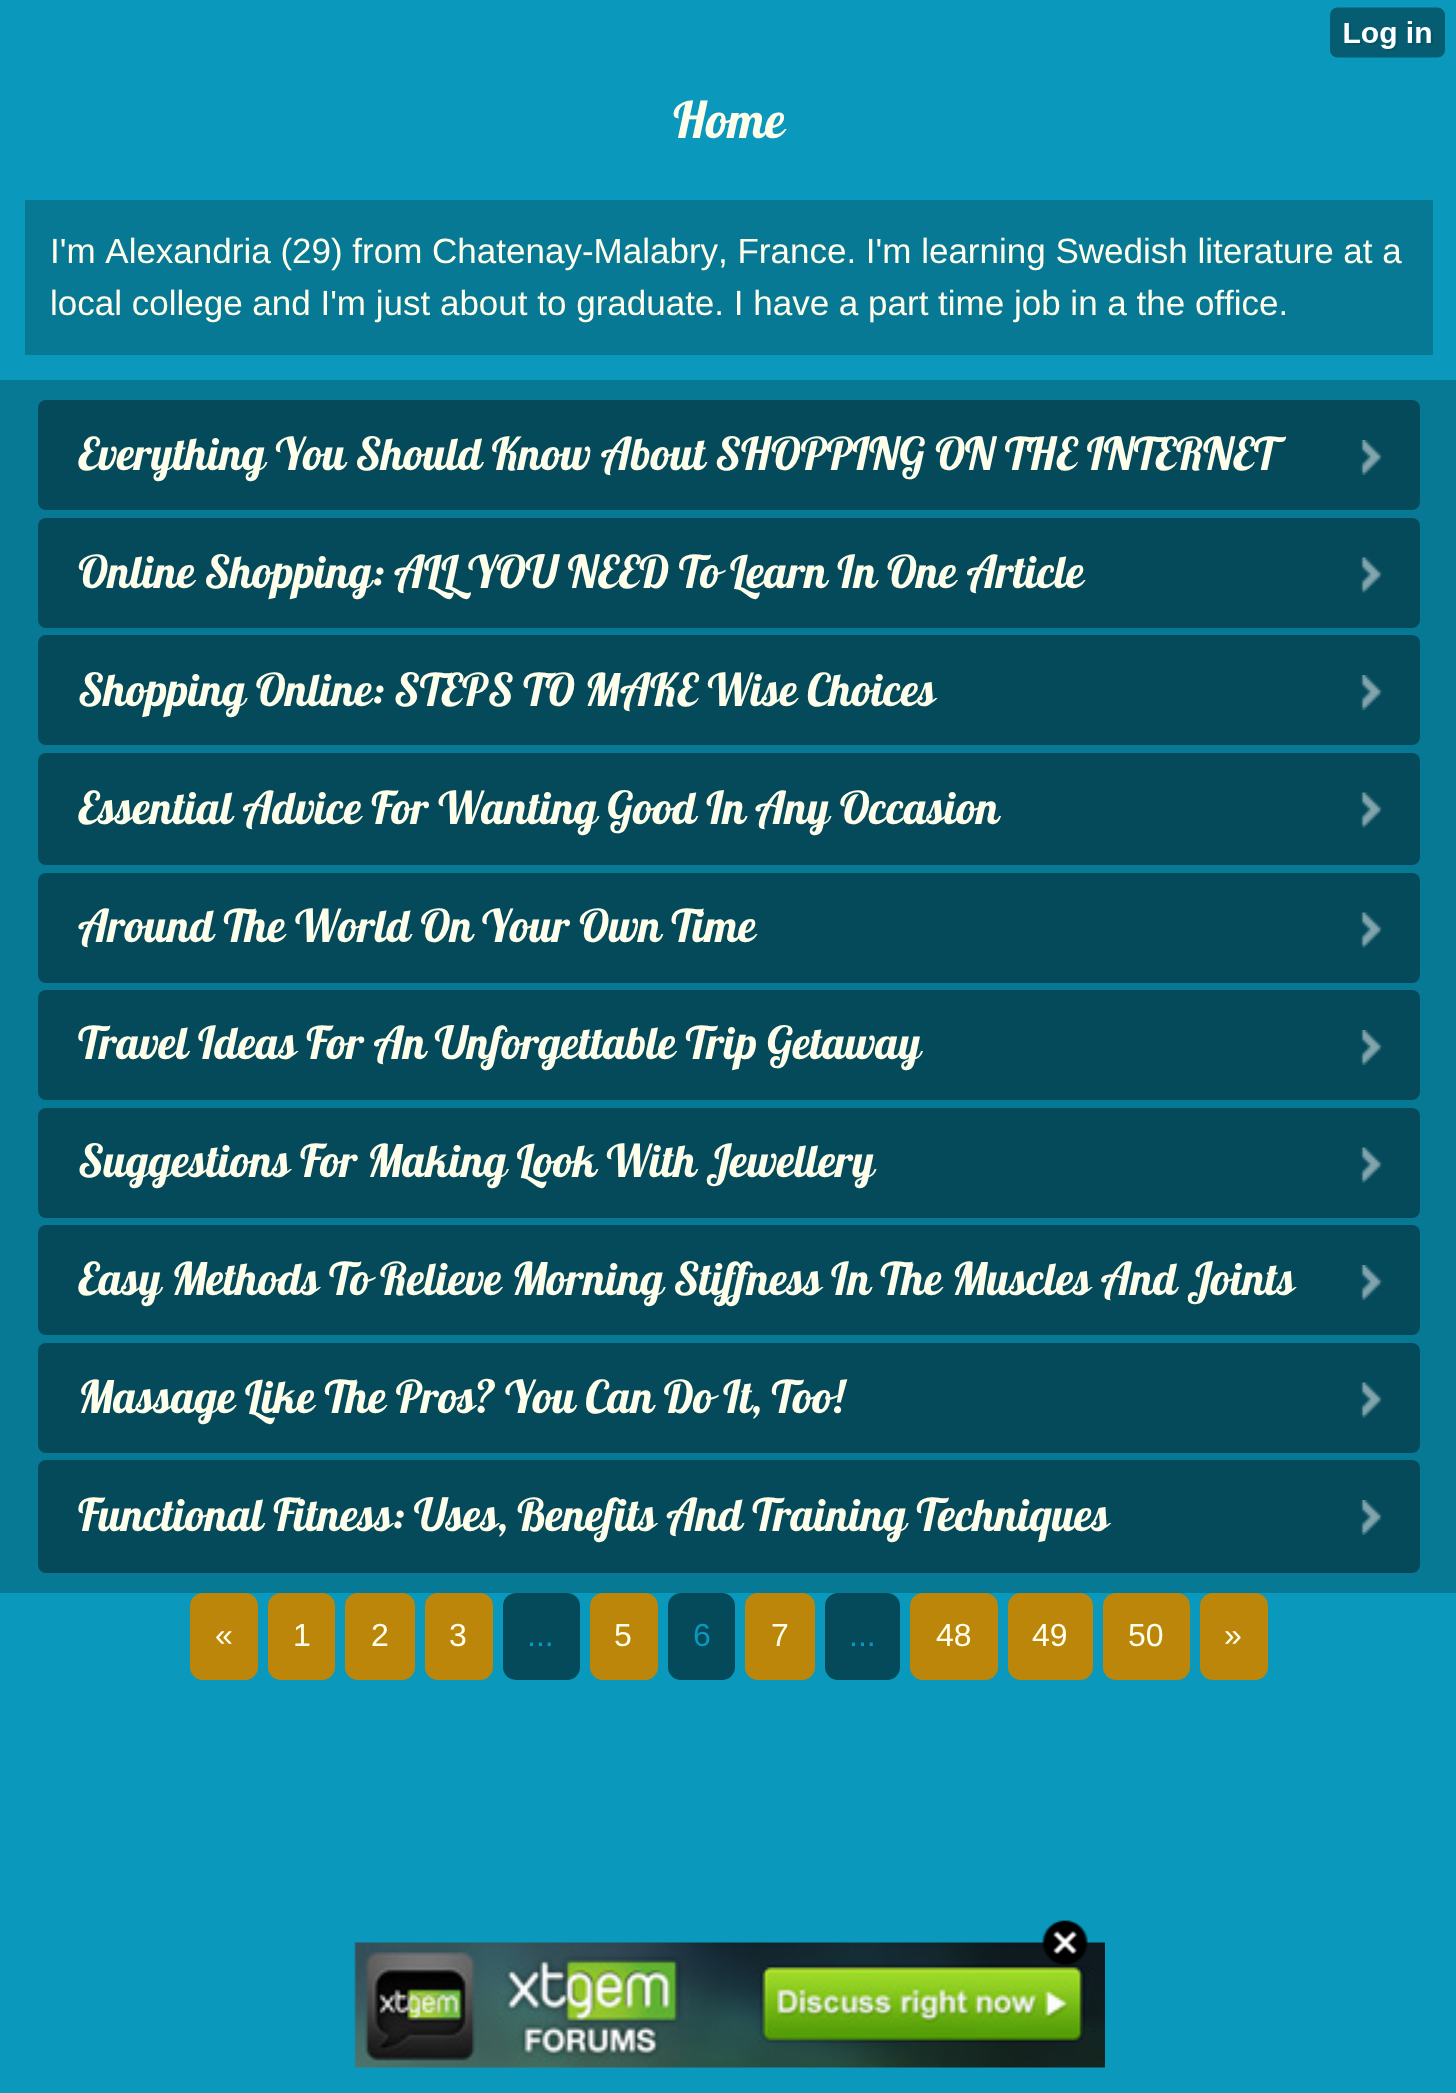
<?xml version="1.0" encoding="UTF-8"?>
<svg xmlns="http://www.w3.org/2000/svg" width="1456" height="2093">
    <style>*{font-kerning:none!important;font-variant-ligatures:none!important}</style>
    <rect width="100%" height="100%" fill="#0A99BC"/>
    <image x="1330" y="7" width="115" height="51" href="img_01.png"/>
    <text x="673" y="138" font-family="Lobster" font-size="50" fill="#FFFEEB">Home</text>
    <rect x="25" y="200" width="1408" height="155" fill="#087995"/>
    <text font-family="Liberation Sans" font-size="35" fill="#FFFEEB">
        <tspan x="50" y="263">I'm Alexandria (29) from Chatenay-Malabry, France. I'm learning Swedish literature at a</tspan>
        <tspan x="50" y="315">local college and I'm just about to graduate. I have a part time job in a the office.</tspan>
    </text>
    <rect x="0" y="380" width="1456" height="1213" fill="#087995"/>
    <rect x="38" y="400" width="1382" height="110" rx="8" fill="#054A5B"/>
    <text x="78" y="470" font-family="Lobster" font-size="45" fill="#FFFEEB">Everything You Should Know About SHOPPING ON THE INTERNET</text>
    <image x="1360" y="440" width="23" height="35" href="img_02.png"/>
    <rect x="38" y="518" width="1382" height="110" rx="8" fill="#054A5B"/>
    <text x="78" y="588" font-family="Lobster" font-size="45" fill="#FFFEEB">Online Shopping: ALL YOU NEED To Learn In One Article</text>
    <image x="1360" y="557" width="23" height="36" href="img_03.png"/>
    <rect x="38" y="635" width="1382" height="110" rx="8" fill="#054A5B"/>
    <text x="78" y="706" font-family="Lobster" font-size="45" fill="#FFFEEB">Shopping Online: STEPS TO MAKE Wise Choices</text>
    <image x="1360" y="675" width="23" height="35" href="img_02.png"/>
    <rect x="38" y="753" width="1382" height="112" rx="8" fill="#054A5B"/>
    <text x="78" y="824" font-family="Lobster" font-size="45" fill="#FFFEEB">Essential Advice For Wanting Good In</text>
    <text x="755" y="824" font-family="Lobster" font-size="45" fill="#FFFEEB">Any Occasion</text>
    <image x="1360" y="792" width="23" height="36" href="img_03.png"/>
    <rect x="38" y="873" width="1382" height="110" rx="8" fill="#054A5B"/>
    <text x="78" y="942" font-family="Lobster" font-size="45" fill="#FFFEEB">Around The World On</text>
    <text x="482" y="942" font-family="Lobster" font-size="45" fill="#FFFEEB">Your Own Time</text>
    <image x="1360" y="912" width="23" height="36" href="img_03.png"/>
    <rect x="38" y="990" width="1382" height="110" rx="8" fill="#054A5B"/>
    <text x="78" y="1059" font-family="Lobster" font-size="45" fill="#FFFEEB">Travel Ideas For An</text>
    <text x="435" y="1059" font-family="Lobster" font-size="45" fill="#FFFEEB">Unforgettable Trip Getaway</text>
    <image x="1360" y="1030" width="23" height="35" href="img_02.png"/>
    <rect x="38" y="1108" width="1382" height="110" rx="8" fill="#054A5B"/>
    <text x="78" y="1177" font-family="Lobster" font-size="45" fill="#FFFEEB">Suggestions For Making Look With</text>
    <text x="706" y="1177" font-family="Lobster" font-size="45" fill="#FFFEEB">Jewellery</text>
    <image x="1360" y="1147" width="23" height="36" href="img_04.png"/>
    <rect x="38" y="1225" width="1382" height="110" rx="8" fill="#054A5B"/>
    <text x="78" y="1295" font-family="Lobster" font-size="45" fill="#FFFEEB">Easy Methods To Relieve Morning Stiffness</text>
    <text x="831" y="1295" font-family="Lobster" font-size="45" fill="#FFFEEB">In The Muscles And</text>
    <text x="1187" y="1295" font-family="Lobster" font-size="45" fill="#FFFEEB">Joints</text>
    <image x="1360" y="1265" width="23" height="35" href="img_02.png"/>
    <rect x="38" y="1343" width="1382" height="110" rx="8" fill="#054A5B"/>
    <text x="78" y="1413" font-family="Lobster" font-size="45" fill="#FFFEEB">Massage Like The Pros?</text>
    <text x="505" y="1413" font-family="Lobster" font-size="45" fill="#FFFEEB">You Can Do It, Too!</text>
    <image x="1360" y="1382" width="23" height="36" href="img_03.png"/>
    <rect x="38" y="1460" width="1382" height="113" rx="8" fill="#054A5B"/>
    <text x="78" y="1531" font-family="Lobster" font-size="45" fill="#FFFEEB">Functional Fitness: Uses,</text>
    <text x="517" y="1531" font-family="Lobster" font-size="45" fill="#FFFEEB">Benefits And Training Techniques</text>
    <image x="1360" y="1500" width="23" height="35" href="img_02.png"/>
    <rect x="190" y="1593" width="68" height="87" rx="13" fill="#BC860A"/>
    <text x="215" y="1646" font-family="Liberation Sans" font-size="32" fill="#FFFEEB">«</text>
    <rect x="268" y="1593" width="67" height="87" rx="13" fill="#BC860A"/>
    <text x="293" y="1646" font-family="Liberation Sans" font-size="32" fill="#FFFEEB">1</text>
    <rect x="345" y="1593" width="70" height="87" rx="13" fill="#BC860A"/>
    <text x="371" y="1646" font-family="Liberation Sans" font-size="32" fill="#FFFEEB">2</text>
    <rect x="425" y="1593" width="68" height="87" rx="13" fill="#BC860A"/>
    <text x="449" y="1646" font-family="Liberation Sans" font-size="32" fill="#FFFEEB">3</text>
    <rect x="503" y="1593" width="77" height="87" rx="13" fill="#054A5B"/>
    <text x="527" y="1646" font-family="Liberation Sans" font-size="32" fill="#0A99BC">...</text>
    <rect x="590" y="1593" width="68" height="87" rx="13" fill="#BC860A"/>
    <text x="614" y="1646" font-family="Liberation Sans" font-size="32" fill="#FFFEEB">5</text>
    <rect x="668" y="1593" width="67" height="87" rx="13" fill="#054A5B"/>
    <text x="693" y="1646" font-family="Liberation Sans" font-size="32" fill="#0A99BC">6</text>
    <rect x="745" y="1593" width="70" height="87" rx="13" fill="#BC860A"/>
    <text x="771" y="1646" font-family="Liberation Sans" font-size="32" fill="#FFFEEB">7</text>
    <rect x="825" y="1593" width="75" height="87" rx="13" fill="#054A5B"/>
    <text x="849" y="1646" font-family="Liberation Sans" font-size="32" fill="#0A99BC">...</text>
    <rect x="910" y="1593" width="88" height="87" rx="13" fill="#BC860A"/>
    <text x="936" y="1646" font-family="Liberation Sans" font-size="32" fill="#FFFEEB">48</text>
    <rect x="1008" y="1593" width="85" height="87" rx="13" fill="#BC860A"/>
    <text x="1032" y="1646" font-family="Liberation Sans" font-size="32" fill="#FFFEEB">49</text>
    <rect x="1103" y="1593" width="87" height="87" rx="13" fill="#BC860A"/>
    <text x="1128" y="1646" font-family="Liberation Sans" font-size="32" fill="#FFFEEB">50</text>
    <rect x="1200" y="1593" width="68" height="87" rx="13" fill="#BC860A"/>
    <text x="1224" y="1646" font-family="Liberation Sans" font-size="32" fill="#FFFEEB">»</text>
    <image x="354" y="1942" width="751" height="126" href="img_06.png"/>
    <image x="1042" y="1920" width="46" height="45" href="img_05.png"/>
</svg>
